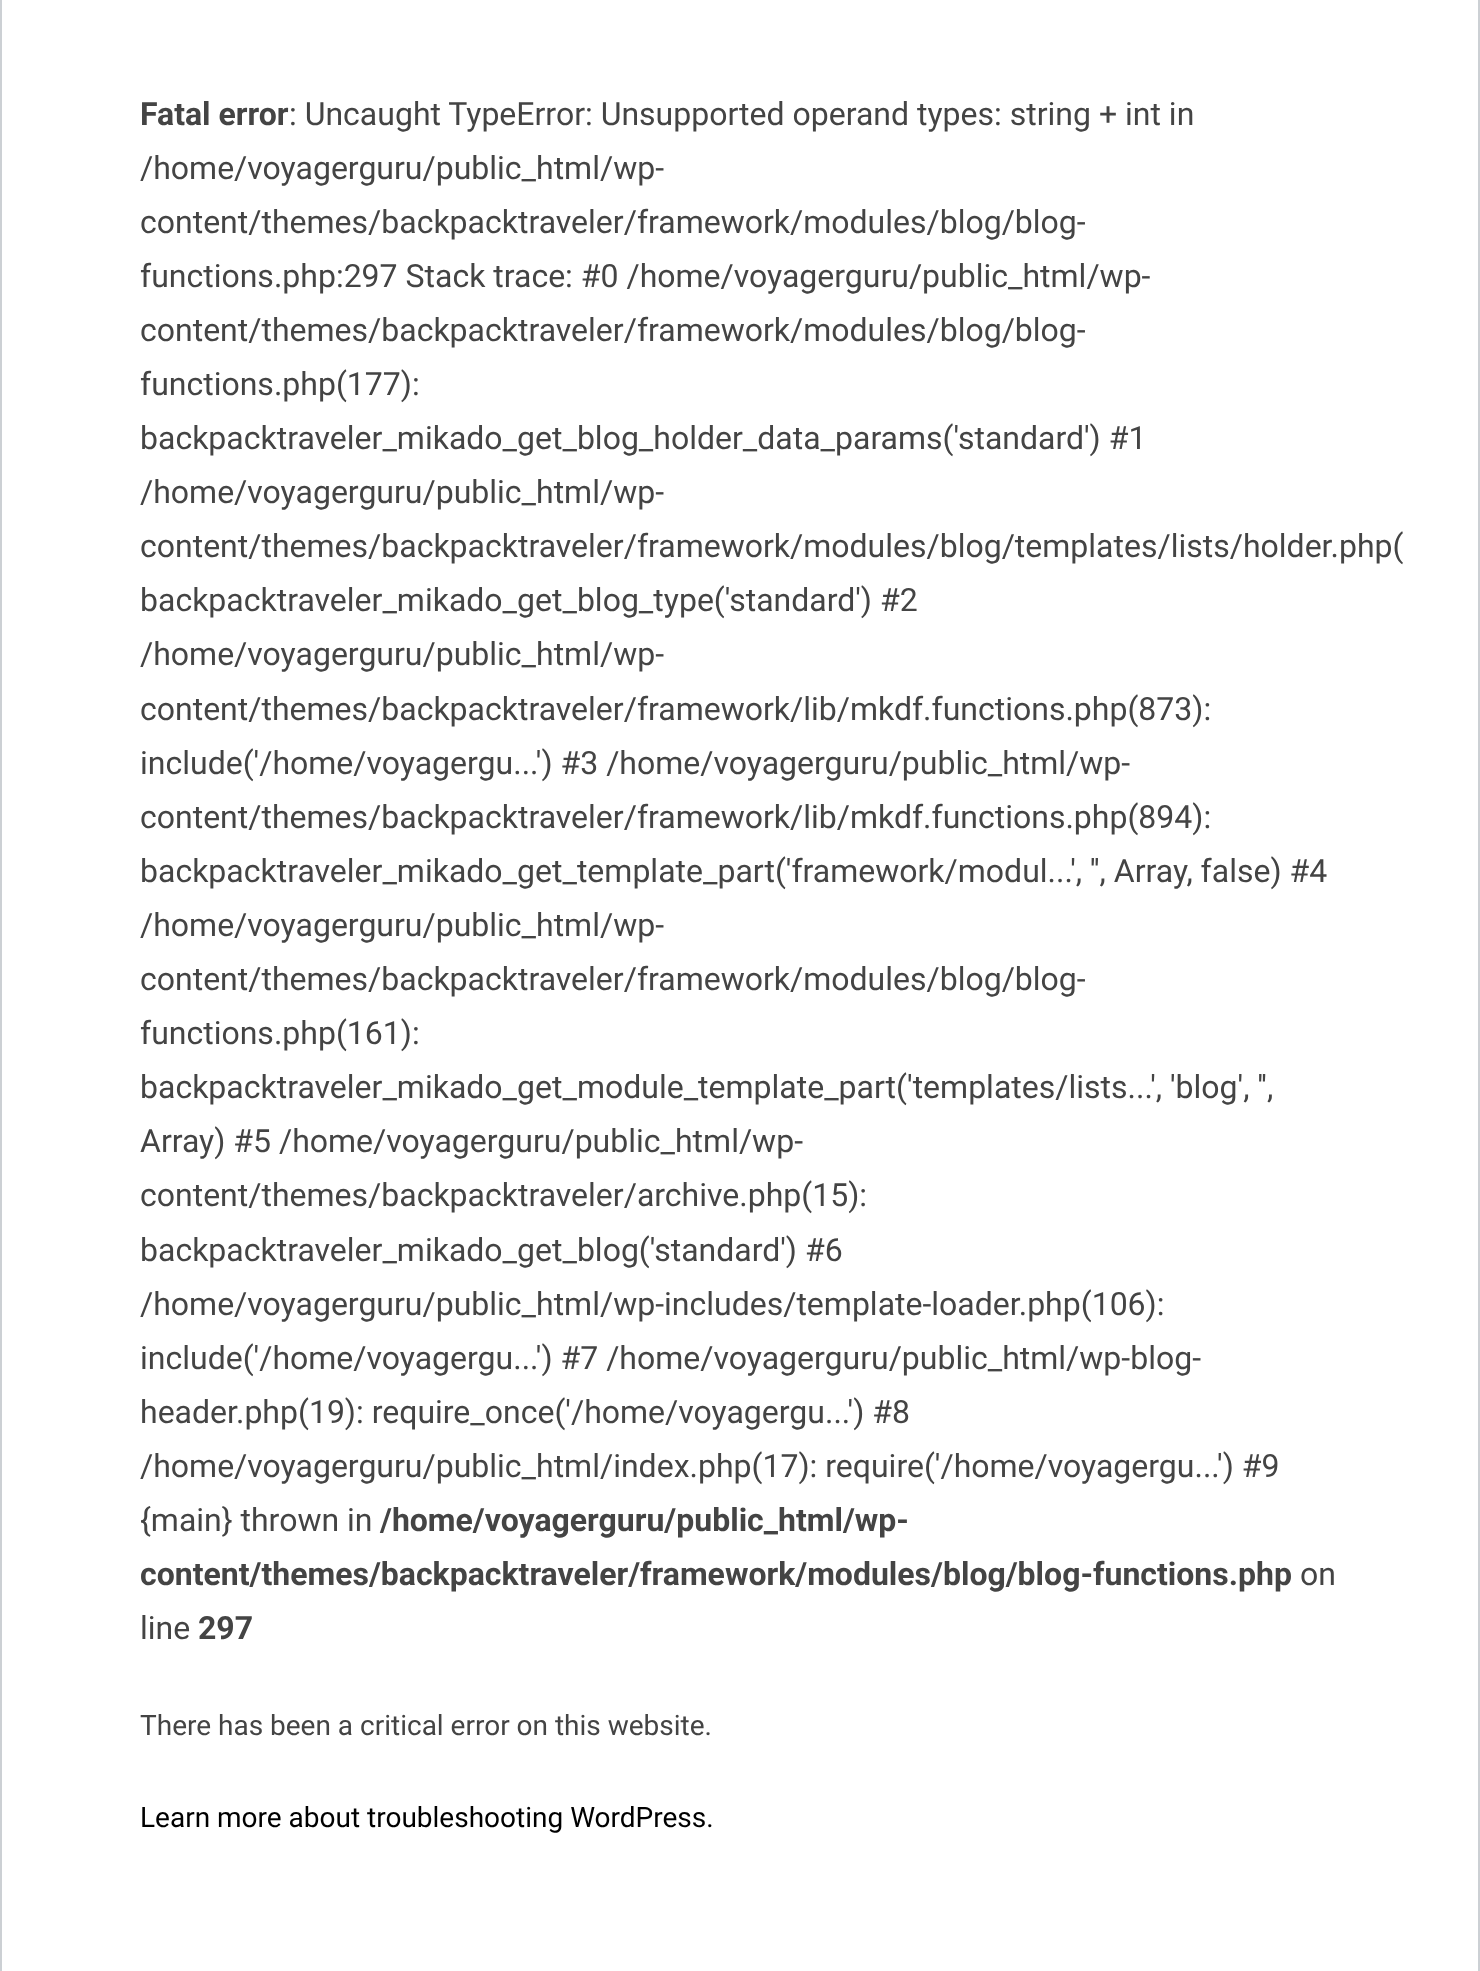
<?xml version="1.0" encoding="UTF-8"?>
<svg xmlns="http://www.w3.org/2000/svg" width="1480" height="1971">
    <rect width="100%" height="100%" fill="#FFFFFF"/>
    <rect x="1" y="-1" width="1478" height="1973" fill="none" stroke="#CCD0D4" stroke-width="2"/>
    <text x="140" y="125" font-family="Roboto" font-size="32" font-weight="700" fill="#444444">Fatal error</text>
    <text x="289" y="125" font-family="Roboto" font-size="32" fill="#444444">: Uncaught TypeError: Unsupported operand types: string + int in</text>
    <text font-family="Roboto" font-size="32" fill="#444444">
        <tspan x="140" y="179">/home/voyagerguru/public_html/wp-</tspan>
        <tspan x="140" y="233">content/themes/backpacktraveler/framework/modules/blog/blog-</tspan>
        <tspan x="140" y="287">functions.php:297 Stack trace: #0 /home/voyagerguru/public_html/wp-</tspan>
        <tspan x="140" y="341">content/themes/backpacktraveler/framework/modules/blog/blog-</tspan>
        <tspan x="140" y="395">functions.php(177):</tspan>
        <tspan x="140" y="449">backpacktraveler_mikado_get_blog_holder_data_params('standard') #1</tspan>
        <tspan x="140" y="503">/home/voyagerguru/public_html/wp-</tspan>
        <tspan x="140" y="557">content/themes/backpacktraveler/framework/modules/blog/templates/lists/holder.php(</tspan>
        <tspan x="140" y="611">backpacktraveler_mikado_get_blog_type('standard') #2</tspan>
        <tspan x="140" y="665">/home/voyagerguru/public_html/wp-</tspan>
        <tspan x="140" y="720">content/themes/backpacktraveler/framework/lib/mkdf.functions.php(873):</tspan>
        <tspan x="140" y="774">include('/home/voyagergu...') #3 /home/voyagerguru/public_html/wp-</tspan>
        <tspan x="140" y="828">content/themes/backpacktraveler/framework/lib/mkdf.functions.php(894):</tspan>
        <tspan x="140" y="882">backpacktraveler_mikado_get_template_part('framework/modul...', '', Array, false) #4</tspan>
        <tspan x="140" y="936">/home/voyagerguru/public_html/wp-</tspan>
        <tspan x="140" y="990">content/themes/backpacktraveler/framework/modules/blog/blog-</tspan>
        <tspan x="140" y="1044">functions.php(161):</tspan>
        <tspan x="140" y="1098">backpacktraveler_mikado_get_module_template_part('templates/lists...', 'blog', '',</tspan>
        <tspan x="140" y="1152">Array) #5 /home/voyagerguru/public_html/wp-</tspan>
        <tspan x="140" y="1206">content/themes/backpacktraveler/archive.php(15):</tspan>
        <tspan x="140" y="1261">backpacktraveler_mikado_get_blog('standard') #6</tspan>
        <tspan x="140" y="1315">/home/voyagerguru/public_html/wp-includes/template-loader.php(106):</tspan>
        <tspan x="140" y="1369">include('/home/voyagergu...') #7 /home/voyagerguru/public_html/wp-blog-</tspan>
        <tspan x="140" y="1423">header.php(19): require_once('/home/voyagergu...') #8</tspan>
        <tspan x="140" y="1477">/home/voyagerguru/public_html/index.php(17): require('/home/voyagergu...') #9</tspan>
        <tspan x="140" y="1531">{main} thrown in</tspan>
    </text>
    <text x="380" y="1531" font-family="Roboto" font-size="32" font-weight="700" fill="#444444">/home/voyagerguru/public_html/wp-</text>
    <text x="140" y="1585" font-family="Roboto" font-size="32" font-weight="700" fill="#444444">content/themes/backpacktraveler/framework/modules/blog/blog-functions.php</text>
    <text x="1300" y="1585" font-family="Roboto" font-size="32" fill="#444444">on</text>
    <text x="140" y="1639" font-family="Roboto" font-size="32" fill="#444444">line</text>
    <text x="198" y="1639" font-family="Roboto" font-size="32" font-weight="700" fill="#444444">297</text>
    <text x="140" y="1735" font-family="Roboto" font-size="28" fill="#444444">There has been a critical error on this website.</text>
    <text x="140" y="1827" font-family="Roboto" font-size="28" fill="#000000">Learn more about troubleshooting WordPress.</text>
</svg>
